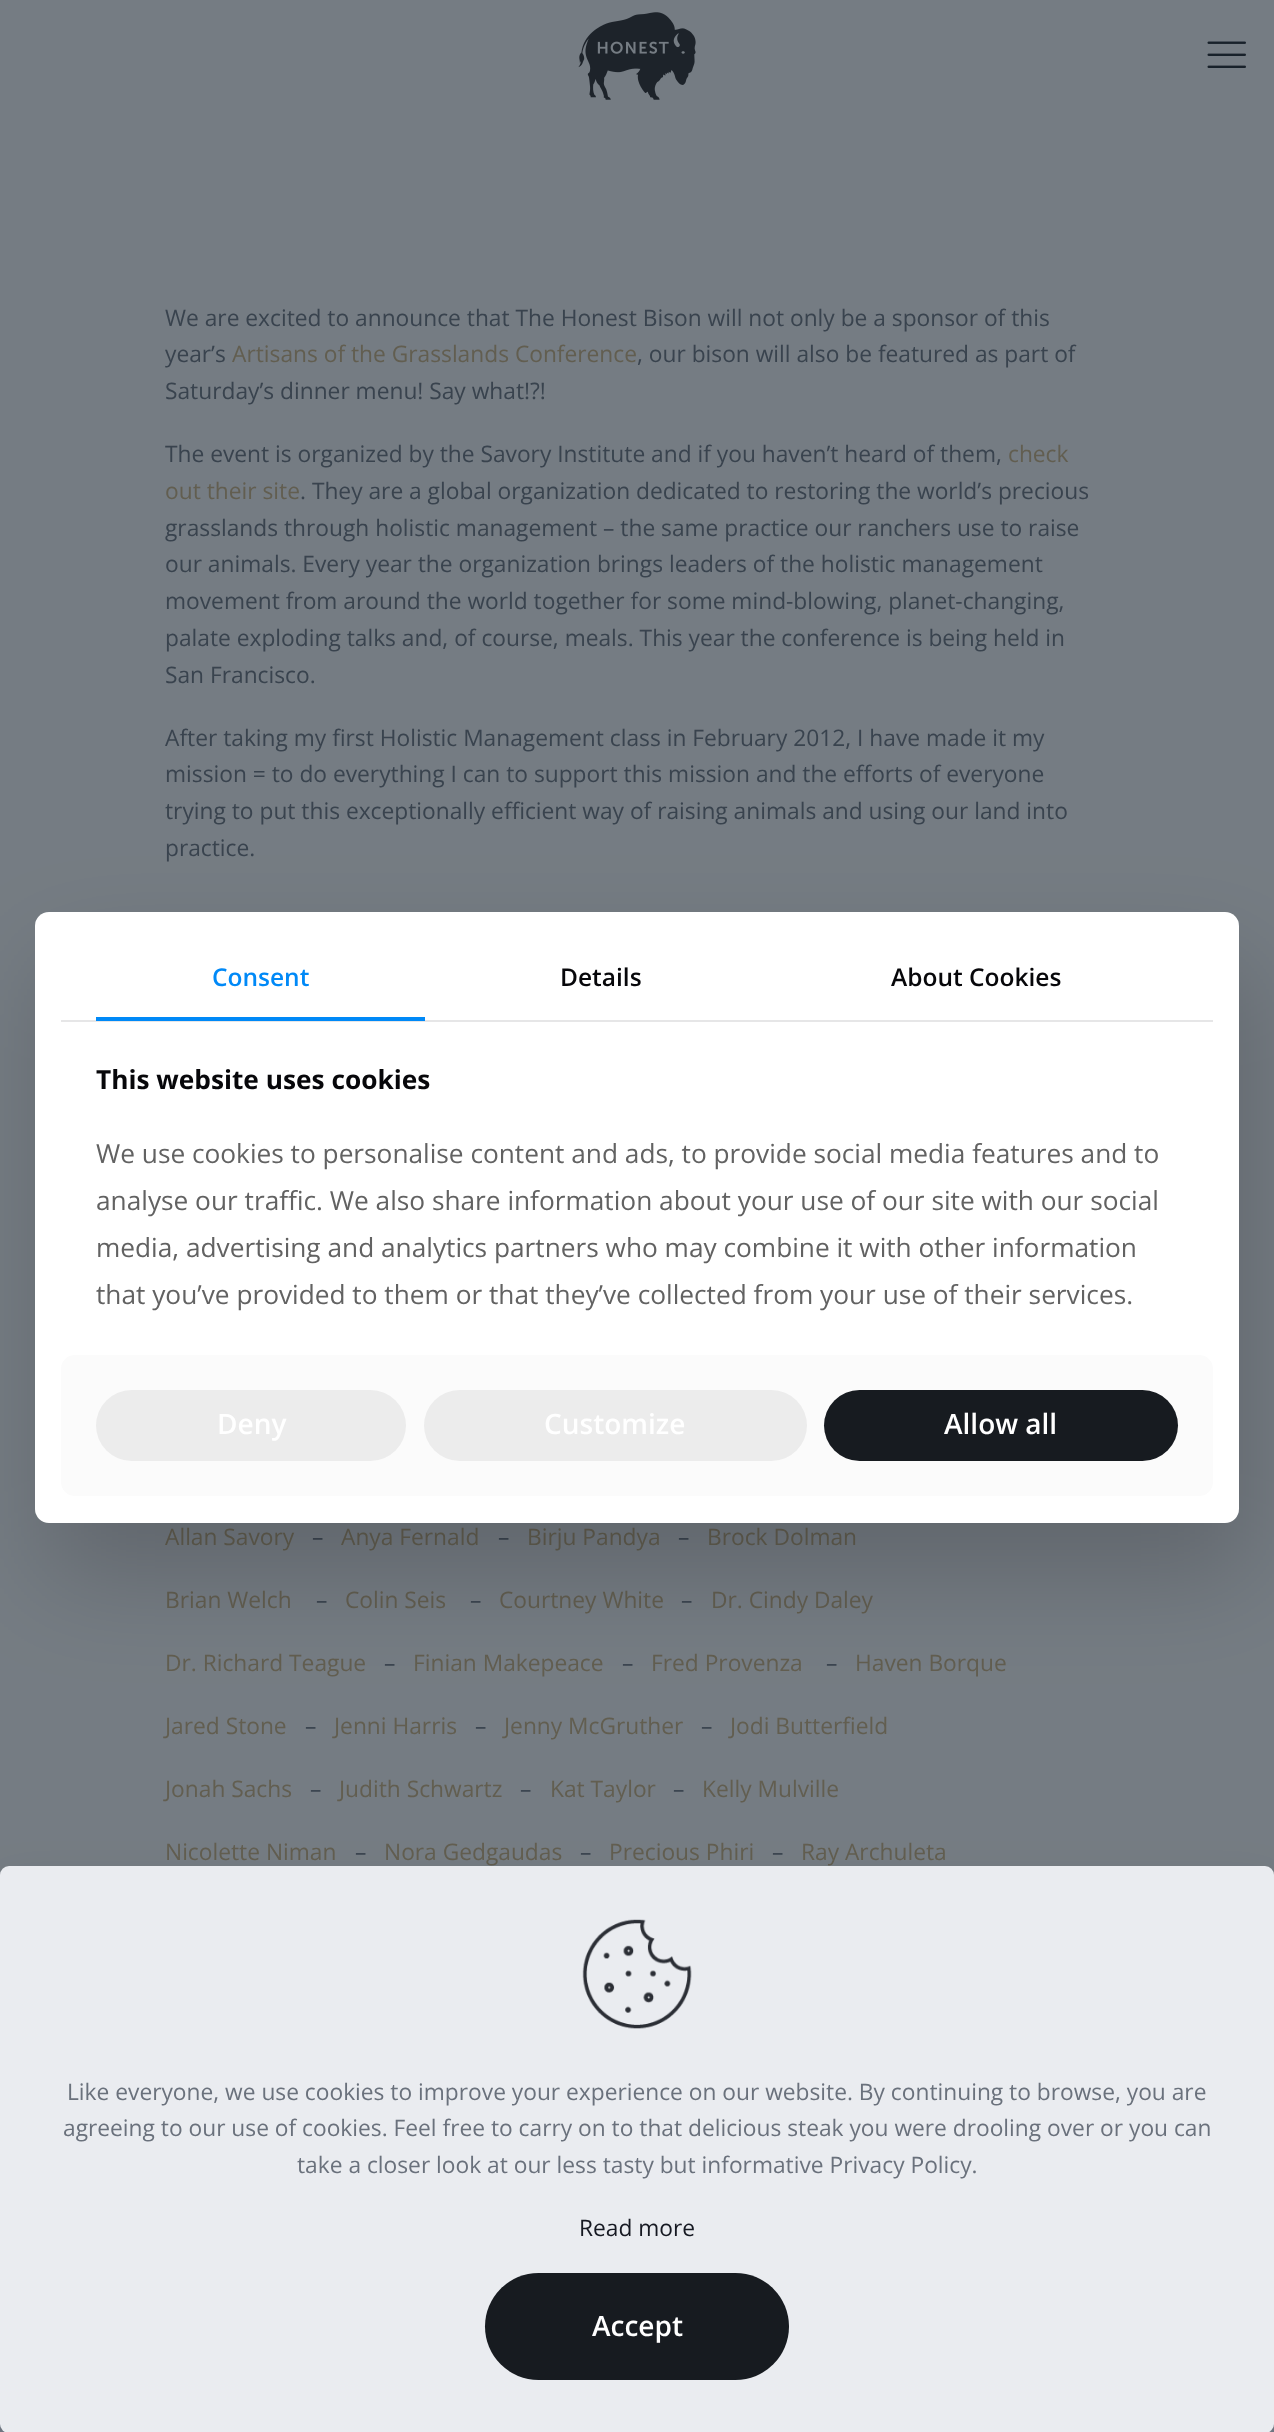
<?xml version="1.0" encoding="UTF-8"?>
<svg xmlns="http://www.w3.org/2000/svg" width="1274" height="2432">
    <defs>
        <filter id="blur1" x="-50%" y="-200%" width="200%" height="500%"><feGaussianBlur stdDeviation="52.5"/></filter>
        <filter id="blur2" x="-50%" y="-200%" width="200%" height="500%"><feGaussianBlur stdDeviation="26"/></filter>
    </defs>
    <rect width="100%" height="100%" fill="#757C83"/>
    <image x="578" y="12" width="118" height="88" href="img_01.png"/>
    <image x="1207" y="41" width="39" height="27" href="img_02.png"/>
    <text font-family="Open Sans" font-size="22.75" fill="#39434E">
        <tspan x="165" y="326">We are excited to announce that The Honest Bison will not only be a sponsor of this</tspan>
        <tspan x="165" y="362">year’s</tspan>
    </text>
    <text x="232" y="362" font-family="Open Sans" font-size="22.75" fill="#625E50">Artisans of the Grasslands Conference</text>
    <text x="637" y="362" font-family="Open Sans" font-size="22.75" fill="#39434E">, our bison will also be featured as part of</text>
    <text x="165" y="399" font-family="Open Sans" font-size="22.75" fill="#39434E">Saturday’s dinner menu! Say what!?!</text>
    <text x="165" y="462" font-family="Open Sans" font-size="22.75" fill="#39434E">The event is organized by the Savory Institute and if you haven’t heard of them,</text>
    <text x="1008" y="462" font-family="Open Sans" font-size="22.75" fill="#625E50">check</text>
    <text x="165" y="499" font-family="Open Sans" font-size="22.75" fill="#625E50">out their site</text>
    <text x="300" y="499" font-family="Open Sans" font-size="22.75" fill="#39434E">. They are a global organization dedicated to restoring the world’s precious</text>
    <text font-family="Open Sans" font-size="22.75" fill="#39434E">
        <tspan x="165" y="536">grasslands through holistic management – the same practice our ranchers use to raise</tspan>
        <tspan x="165" y="572">our animals. Every year the organization brings leaders of the holistic management</tspan>
        <tspan x="165" y="609">movement from around the world together for some mind-blowing, planet-changing,</tspan>
        <tspan x="165" y="646">palate exploding talks and, of course, meals. This year the conference is being held in</tspan>
        <tspan x="165" y="683">San Francisco.</tspan>
    </text>
    <text font-family="Open Sans" font-size="22.75" fill="#39434E">
        <tspan x="165" y="746">After taking my first Holistic Management class in February 2012, I have made it my</tspan>
        <tspan x="165" y="782">mission = to do everything I can to support this mission and the efforts of everyone</tspan>
        <tspan x="165" y="819">trying to put this exceptionally efficient way of raising animals and using our land into</tspan>
        <tspan x="165" y="856">practice.</tspan>
    </text>
    <text x="165" y="1545" font-family="Open Sans" font-size="22.75" fill="#625E50">Allan Savory</text>
    <text x="312" y="1545" font-family="Open Sans" font-size="22.75" fill="#39434E">–</text>
    <text x="341" y="1545" font-family="Open Sans" font-size="22.75" fill="#625E50">Anya Fernald</text>
    <text x="498" y="1545" font-family="Open Sans" font-size="22.75" fill="#39434E">–</text>
    <text x="527" y="1545" font-family="Open Sans" font-size="22.75" fill="#625E50">Birju Pandya</text>
    <text x="678" y="1545" font-family="Open Sans" font-size="22.75" fill="#39434E">–</text>
    <text x="707" y="1545" font-family="Open Sans" font-size="22.75" fill="#625E50">Brock Dolman</text>
    <text x="165" y="1608" font-family="Open Sans" font-size="22.75" fill="#625E50">Brian Welch</text>
    <text x="316" y="1608" font-family="Open Sans" font-size="22.75" fill="#39434E">–</text>
    <text x="345" y="1608" font-family="Open Sans" font-size="22.75" fill="#625E50">Colin Seis</text>
    <text x="470" y="1608" font-family="Open Sans" font-size="22.75" fill="#39434E">–</text>
    <text x="499" y="1608" font-family="Open Sans" font-size="22.75" fill="#625E50">Courtney White</text>
    <text x="681" y="1608" font-family="Open Sans" font-size="22.75" fill="#39434E">–</text>
    <text x="711" y="1608" font-family="Open Sans" font-size="22.75" fill="#625E50">Dr. Cindy Daley</text>
    <text x="165" y="1671" font-family="Open Sans" font-size="22.75" fill="#625E50">Dr. Richard Teague</text>
    <text x="384" y="1671" font-family="Open Sans" font-size="22.75" fill="#39434E">–</text>
    <text x="413" y="1671" font-family="Open Sans" font-size="22.75" fill="#625E50">Finian Makepeace</text>
    <text x="622" y="1671" font-family="Open Sans" font-size="22.75" fill="#39434E">–</text>
    <text x="651" y="1671" font-family="Open Sans" font-size="22.75" fill="#625E50">Fred Provenza</text>
    <text x="826" y="1671" font-family="Open Sans" font-size="22.75" fill="#39434E">–</text>
    <text x="855" y="1671" font-family="Open Sans" font-size="22.75" fill="#625E50">Haven Borque</text>
    <text x="165" y="1734" font-family="Open Sans" font-size="22.75" fill="#625E50">Jared Stone</text>
    <text x="305" y="1734" font-family="Open Sans" font-size="22.75" fill="#39434E">–</text>
    <text x="334" y="1734" font-family="Open Sans" font-size="22.75" fill="#625E50">Jenni Harris</text>
    <text x="475" y="1734" font-family="Open Sans" font-size="22.75" fill="#39434E">–</text>
    <text x="504" y="1734" font-family="Open Sans" font-size="22.75" fill="#625E50">Jenny McGruther</text>
    <text x="701" y="1734" font-family="Open Sans" font-size="22.75" fill="#39434E">–</text>
    <text x="730" y="1734" font-family="Open Sans" font-size="22.75" fill="#625E50">Jodi Butterfield</text>
    <text x="165" y="1797" font-family="Open Sans" font-size="22.75" fill="#625E50">Jonah Sachs</text>
    <text x="310" y="1797" font-family="Open Sans" font-size="22.75" fill="#39434E">–</text>
    <text x="339" y="1797" font-family="Open Sans" font-size="22.75" fill="#625E50">Judith Schwartz</text>
    <text x="520" y="1797" font-family="Open Sans" font-size="22.75" fill="#39434E">–</text>
    <text x="550" y="1797" font-family="Open Sans" font-size="22.75" fill="#625E50">Kat Taylor</text>
    <text x="673" y="1797" font-family="Open Sans" font-size="22.75" fill="#39434E">–</text>
    <text x="702" y="1797" font-family="Open Sans" font-size="22.75" fill="#625E50">Kelly Mulville</text>
    <text x="165" y="1860" font-family="Open Sans" font-size="22.75" fill="#625E50">Nicolette Niman</text>
    <text x="355" y="1860" font-family="Open Sans" font-size="22.75" fill="#39434E">–</text>
    <text x="384" y="1860" font-family="Open Sans" font-size="22.75" fill="#625E50">Nora Gedgaudas</text>
    <text x="580" y="1860" font-family="Open Sans" font-size="22.75" fill="#39434E">–</text>
    <text x="609" y="1860" font-family="Open Sans" font-size="22.75" fill="#625E50">Precious Phiri</text>
    <text x="772" y="1860" font-family="Open Sans" font-size="22.75" fill="#39434E">–</text>
    <text x="801" y="1860" font-family="Open Sans" font-size="22.75" fill="#625E50">Ray Archuleta</text>
    <rect x="46" y="964" width="1204" height="611" rx="14" fill="#000000" fill-opacity="0.18" filter="url(#blur1)"/>
    <rect x="35" y="912" width="1204" height="611" rx="14" fill="#FFFFFF"/>
    <rect x="61" y="1020" width="1152" height="2" fill="#E6E6E7"/>
    <text x="212" y="986" font-family="Open Sans" font-size="24.5" font-weight="600" fill="#0089F7">Consent</text>
    <rect x="96" y="1017" width="329" height="4" fill="#0089F7"/>
    <text x="560" y="986" font-family="Open Sans" font-size="24.5" font-weight="600" fill="#07070A">Details</text>
    <text x="891" y="986" font-family="Open Sans" font-size="24.5" font-weight="600" fill="#07070A">About Cookies</text>
    <text x="96" y="1089" font-family="Open Sans" font-size="26.25" font-weight="700" fill="#07070A">This website uses cookies</text>
    <text font-family="Open Sans" font-size="26.25" fill="#626262">
        <tspan x="96" y="1163">We use cookies to personalise content and ads, to provide social media features and to</tspan>
        <tspan x="96" y="1210">analyse our traffic. We also share information about your use of our site with our social</tspan>
        <tspan x="96" y="1257">media, advertising and analytics partners who may combine it with other information</tspan>
        <tspan x="96" y="1304">that you’ve provided to them or that they’ve collected from your use of their services.</tspan>
    </text>
    <rect x="61" y="1355" width="1152" height="141" rx="14" fill="#FBFBFB"/>
    <rect x="96" y="1390" width="310" height="71" rx="35.5" fill="#ECECEC"/>
    <text x="217" y="1434" font-family="Open Sans" font-size="28" font-weight="600" fill="#FFFFFF">Deny</text>
    <rect x="424" y="1390" width="383" height="71" rx="35.5" fill="#ECECEC"/>
    <text x="544" y="1434" font-family="Open Sans" font-size="28" font-weight="600" fill="#FFFFFF">Customize</text>
    <rect x="824" y="1390" width="354" height="71" rx="35.5" fill="#171B20"/>
    <text x="944" y="1434" font-family="Open Sans" font-size="28" font-weight="600" fill="#FFFFFF">Allow all</text>
    <rect x="0" y="1892" width="1274" height="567" rx="9" fill="#010727" fill-opacity="0.13" filter="url(#blur2)"/>
    <rect x="0" y="1866" width="1274" height="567" rx="9" fill="#EAECF0"/>
    <image x="582" y="1919" width="110" height="110" href="img_03.png"/>
    <text x="67" y="2100" font-family="Open Sans" font-size="22.75" fill="#6A717C">Like everyone, we use cookies to improve your experience on our website. By continuing to browse, you are</text>
    <text x="63" y="2136" font-family="Open Sans" font-size="22.75" fill="#6A717C">agreeing to our use of cookies. Feel free to carry on to that delicious steak you were drooling over or you can</text>
    <text x="297" y="2173" font-family="Open Sans" font-size="22.75" fill="#6A717C">take a closer look at our less tasty but informative Privacy Policy.</text>
    <text x="579" y="2236" font-family="Open Sans" font-size="22.75" fill="#161922">Read more</text>
    <rect x="485" y="2273" width="304" height="107" rx="53.5" fill="#171B20"/>
    <text x="592" y="2336" font-family="Open Sans" font-size="28" font-weight="600" fill="#FFFFFF">Accept</text>
</svg>
